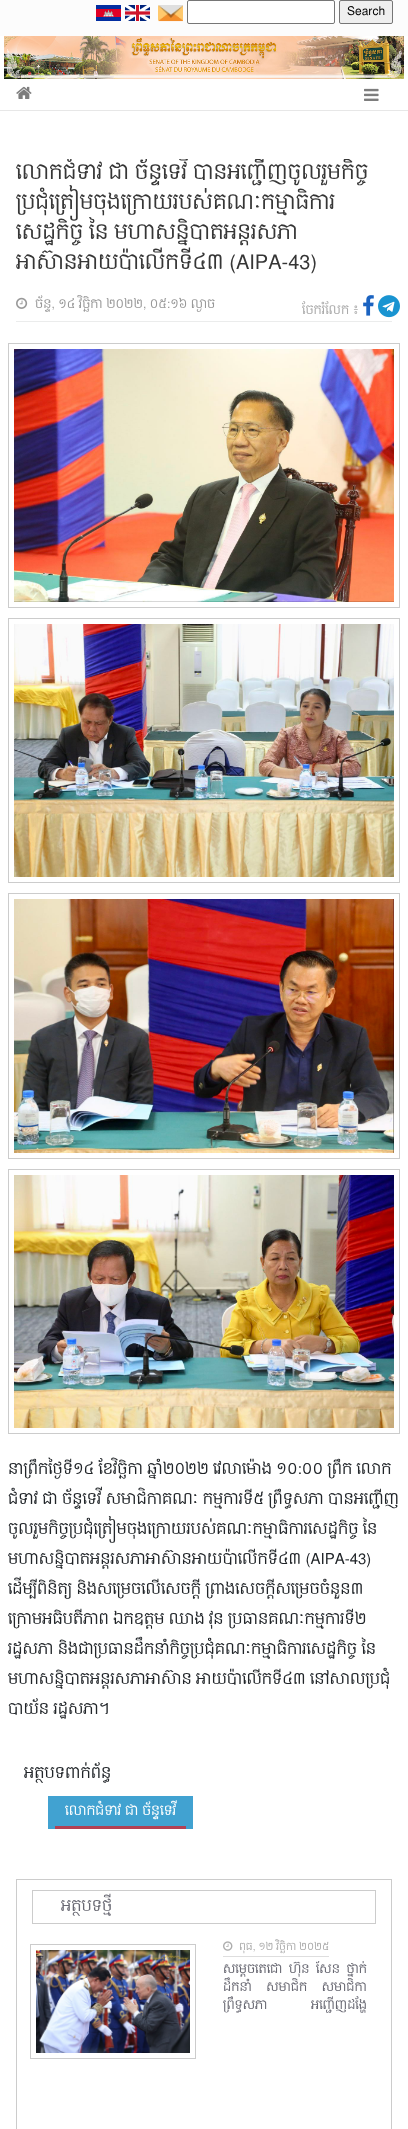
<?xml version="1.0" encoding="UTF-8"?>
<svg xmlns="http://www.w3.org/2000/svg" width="408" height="2129">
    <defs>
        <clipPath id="clip1"><rect x="0" y="159" width="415" height="1670"/></clipPath>
        <clipPath id="clip2"><rect x="223" y="1961" width="144" height="54"/></clipPath>
    </defs>
    <rect width="100%" height="100%" fill="#FFFFFF"/>
    <rect x="0" y="0" width="408" height="36" fill="#FCFCFC"/>
    <image x="96" y="5" width="25" height="16" href="img_01.png"/>
    <image x="125" y="5" width="25" height="16" href="img_02.png"/>
    <image x="158" y="5" width="25" height="17" href="img_03.png"/>
    <rect x="187.5" y="0.5" width="147" height="23" rx="1.5" fill="#FFFFFF" stroke="#767676"/>
    <rect x="339.5" y="0.5" width="53" height="23" rx="1.5" fill="#EFEFEF" stroke="#767676"/>
    <text x="347" y="15" font-family="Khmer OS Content" font-size="12" fill="#000000">Search</text>
    <image x="4" y="36" width="400" height="43" href="img_04.png"/>
    <rect x="0" y="110" width="408" height="1" fill="#E7E7E7"/>
    <image x="16" y="86" width="16" height="13" href="img_05.png"/>
    <image x="364" y="88" width="15" height="13" href="img_06.png"/>
    <g clip-path="url(#clip1)">
        <text x="16" y="179" font-family="Khmer OS Content" font-size="20" fill="#363636">លោកជំទាវ ជា ច័ន្ទទេវី បានអញ្ជើញចូលរួមកិច្ច</text>
    </g>
    <text font-family="Khmer OS Content" font-size="20" fill="#363636">
        <tspan x="16" y="209">ប្រជុំត្រៀមចុងក្រោយរបស់គណៈកម្មាធិការ</tspan>
        <tspan x="16" y="239">សេដ្ឋកិច្ច នៃ មហាសន្និបាតអន្តរសភា</tspan>
        <tspan x="16" y="269">អាស៊ានអាយប៉ាលើកទី៤៣ (AIPA-43)</tspan>
    </text>
    <image x="16" y="297" width="12" height="12" href="img_07.png"/>
    <text x="35" y="308" font-family="Khmer OS Content" font-size="12" fill="#999999">ច័ន្ទ, ១៤ វិច្ឆិកា ២០២២, ០៥:១៦ ល្ងាច</text>
    <text x="302" y="314" font-family="Khmer OS Content" font-size="12" fill="#ABABAB">ចែករំលែក ៖</text>
    <image x="363" y="295" width="11" height="21" href="img_08.png"/>
    <image x="378" y="295" width="22" height="23" href="img_09.png"/>
    <rect x="16" y="321" width="376" height="1" fill="#EBECEC"/>
    <rect x="8.5" y="343.5" width="391" height="264" fill="none" stroke="#CCCCCC"/>
    <image x="14" y="349" width="380" height="253" href="img_10.png"/>
    <rect x="8.5" y="618.5" width="391" height="264" fill="none" stroke="#CCCCCC"/>
    <image x="14" y="624" width="380" height="253" href="img_11.png"/>
    <rect x="8.5" y="893.5" width="391" height="265" fill="none" stroke="#CCCCCC"/>
    <image x="14" y="899" width="380" height="254" href="img_12.png"/>
    <rect x="8.5" y="1169.5" width="391" height="264" fill="none" stroke="#CCCCCC"/>
    <image x="14" y="1175" width="380" height="253" href="img_13.png"/>
    <text x="8" y="1474" font-family="Khmer OS Content" font-size="15" fill="#212529">នាព្រឹកថ្ងៃទី១៤ ខែវិច្ឆិកា ឆ្នាំ២០២២ វេលាម៉ោង ១០:០០ ព្រឹក លោក</text>
    <text x="8" y="1504" font-family="Khmer OS Content" font-size="15" fill="#212529">ជំទាវ ជា ច័ន្ទទេវី សមាជិកាគណៈ កម្មការទី៥ ព្រឹទ្ធសភា បានអញ្ជើញ</text>
    <text x="8" y="1534" font-family="Khmer OS Content" font-size="15" fill="#212529">ចូលរួមកិច្ចប្រជុំត្រៀមចុងក្រោយរបស់គណៈកម្មាធិការសេដ្ឋកិច្ច នៃ</text>
    <text x="8" y="1564" font-family="Khmer OS Content" font-size="15" fill="#212529">មហាសន្និបាតអន្តរសភាអាស៊ានអាយប៉ាលើកទី៤៣ (AIPA-43)</text>
    <text x="8" y="1594" font-family="Khmer OS Content" font-size="15" fill="#212529">ដើម្បីពិនិត្យ និងសម្រេចលើសេចក្តី ព្រាងសេចក្តីសម្រេចចំនួន៣</text>
    <text x="8" y="1624" font-family="Khmer OS Content" font-size="15" fill="#212529">ក្រោមអធិបតីភាព ឯកឧត្តម ឈាង វុន ប្រធានគណៈកម្មការទី២</text>
    <text x="8" y="1654" font-family="Khmer OS Content" font-size="15" fill="#212529">រដ្ឋសភា និងជាប្រធានដឹកនាំកិច្ចប្រជុំគណៈកម្មាធិការសេដ្ឋកិច្ច នៃ</text>
    <text x="8" y="1684" font-family="Khmer OS Content" font-size="15" fill="#212529">មហាសន្និបាតអន្តរសភាអាស៊ាន អាយប៉ាលើកទី៤៣ នៅសាលប្រជុំ</text>
    <text x="8" y="1714" font-family="Khmer OS Content" font-size="15" fill="#212529">បាយ័ន រដ្ឋសភា។</text>
    <text x="24" y="1778" font-family="Khmer OS Content" font-size="15" fill="#212529">អត្ថបទពាក់ព័ន្ធ</text>
    <rect x="48" y="1796" width="145" height="33" fill="#41A2D1"/>
    <rect x="55" y="1826" width="131" height="3" fill="#B34154"/>
    <text x="65" y="1815" font-family="Khmer OS Content" font-size="13" fill="#FFFFFF">លោកជំទាវ ជា ច័ន្ទទេវី</text>
    <rect x="16.5" y="1879.5" width="375" height="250" fill="none" stroke="#CCCCCC"/>
    <rect x="32.5" y="1890.5" width="343" height="33" fill="none" stroke="#CCCCCC"/>
    <text x="61" y="1911" font-family="Khmer OS Content" font-size="15" fill="#686872">អត្ថបទថ្មី</text>
    <rect x="30.5" y="1944.5" width="165" height="114" fill="none" stroke="#CCCCCC"/>
    <image x="36" y="1950" width="154" height="103" href="img_14.png"/>
    <image x="223" y="1941" width="10" height="10" href="img_15.png"/>
    <text x="239" y="1950" font-family="Khmer OS Content" font-size="10" fill="#ABABAB">ពុធ, ១២ វិច្ឆិកា ២០២៥</text>
    <rect x="223" y="1956" width="106" height="1" fill="#DEDEDE"/>
    <g clip-path="url(#clip2)">
        <text font-family="Khmer OS Content" font-size="12" fill="#686872">
            <tspan x="223" y="1973" word-spacing="3">សម្តេចតេជោ ហ៊ុន សែន ថ្នាក់</tspan>
            <tspan x="223" y="1991" word-spacing="11">ដឹកនាំ សមាជិក សមាជិកា</tspan>
            <tspan x="223" y="2009" word-spacing="40">ព្រឹទ្ធសភា អញ្ជើញដង្ហែ</tspan>
        </text>
    </g>
</svg>
